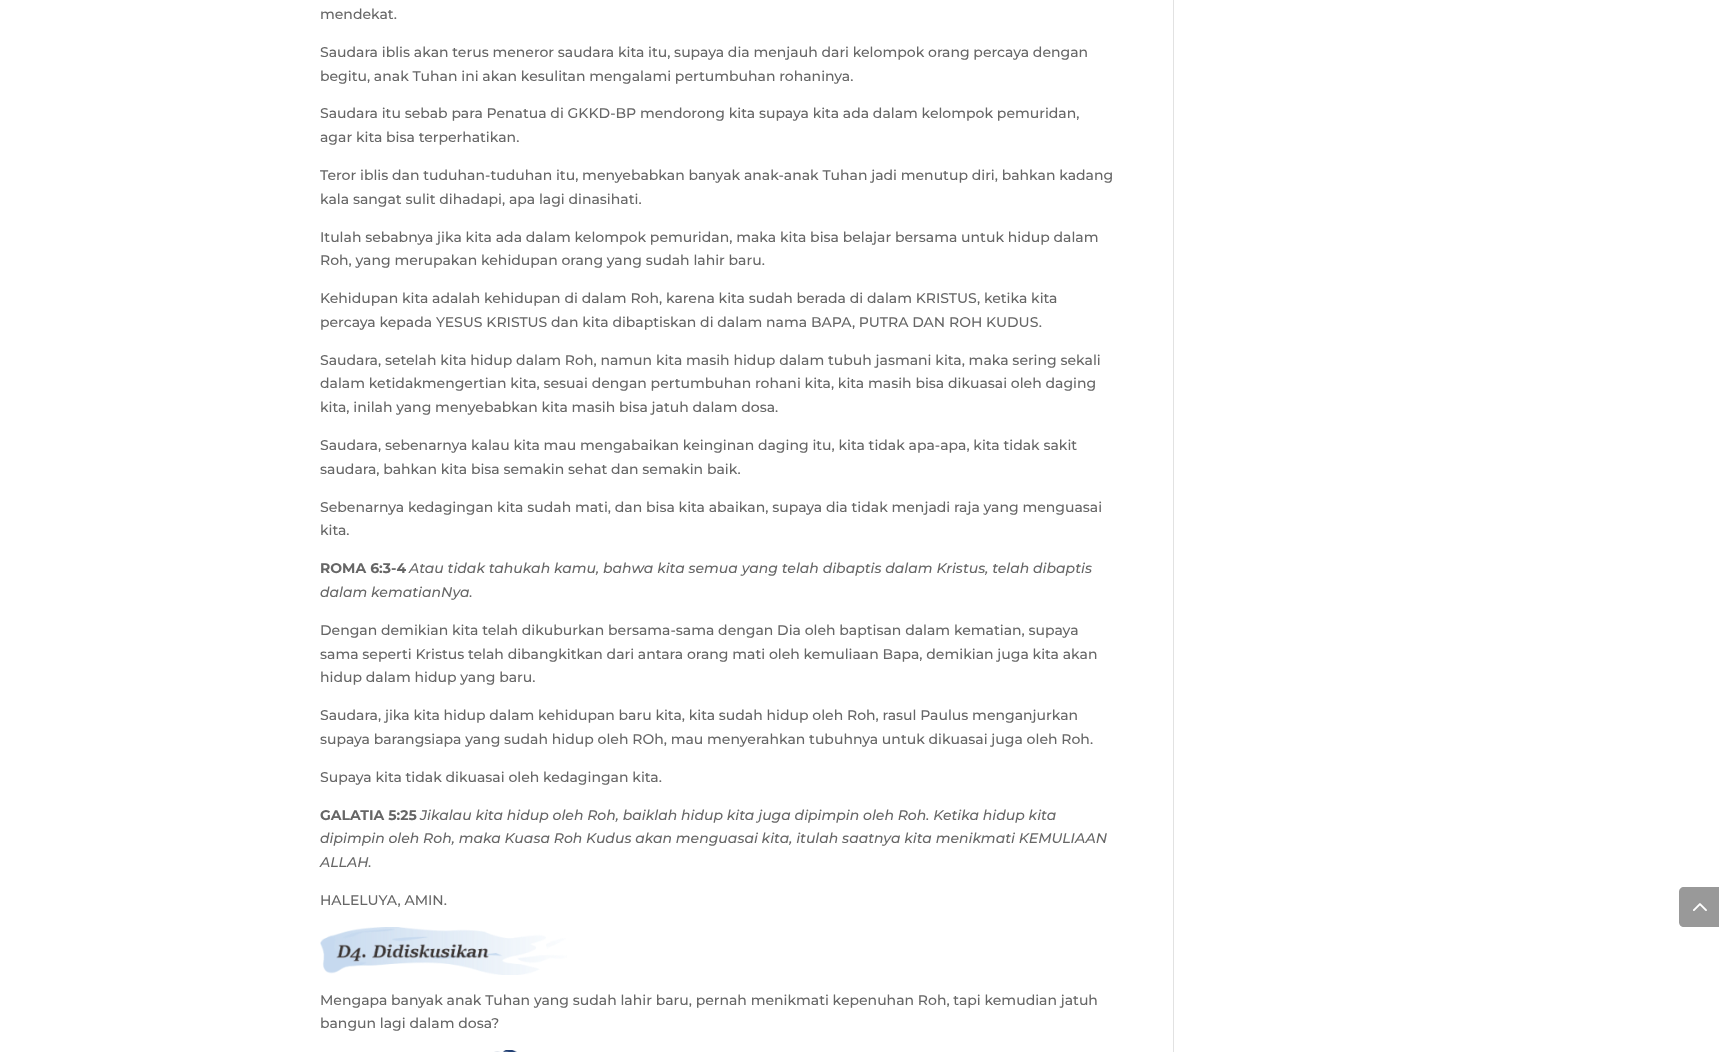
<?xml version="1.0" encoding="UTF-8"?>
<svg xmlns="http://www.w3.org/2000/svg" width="1719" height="1052">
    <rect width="100%" height="100%" fill="#FFFFFF"/>
    <text x="320" y="19" font-family="Montserrat" font-size="14" font-weight="500" fill="#666666">mendekat.</text>
    <text font-family="Montserrat" font-size="14" font-weight="500" fill="#666666">
        <tspan x="320" y="57">Saudara iblis akan terus meneror saudara kita itu, supaya dia menjauh dari kelompok orang percaya dengan</tspan>
        <tspan x="320" y="81">begitu, anak Tuhan ini akan kesulitan mengalami pertumbuhan rohaninya.</tspan>
    </text>
    <text font-family="Montserrat" font-size="14" font-weight="500" fill="#666666">
        <tspan x="320" y="118">Saudara itu sebab para Penatua di GKKD-BP mendorong kita supaya kita ada dalam kelompok pemuridan,</tspan>
        <tspan x="320" y="142">agar kita bisa terperhatikan.</tspan>
    </text>
    <text font-family="Montserrat" font-size="14" font-weight="500" fill="#666666">
        <tspan x="320" y="180">Teror iblis dan tuduhan-tuduhan itu, menyebabkan banyak anak-anak Tuhan jadi menutup diri, bahkan kadang</tspan>
        <tspan x="320" y="204">kala sangat sulit dihadapi, apa lagi dinasihati.</tspan>
    </text>
    <text font-family="Montserrat" font-size="14" font-weight="500" fill="#666666">
        <tspan x="320" y="242">Itulah sebabnya jika kita ada dalam kelompok pemuridan, maka kita bisa belajar bersama untuk hidup dalam</tspan>
        <tspan x="320" y="265">Roh, yang merupakan kehidupan orang yang sudah lahir baru.</tspan>
    </text>
    <text font-family="Montserrat" font-size="14" font-weight="500" fill="#666666">
        <tspan x="320" y="303">Kehidupan kita adalah kehidupan di dalam Roh, karena kita sudah berada di dalam KRISTUS, ketika kita</tspan>
        <tspan x="320" y="327">percaya kepada YESUS KRISTUS dan kita dibaptiskan di dalam nama BAPA, PUTRA DAN ROH KUDUS.</tspan>
    </text>
    <text font-family="Montserrat" font-size="14" font-weight="500" fill="#666666">
        <tspan x="320" y="365">Saudara, setelah kita hidup dalam Roh, namun kita masih hidup dalam tubuh jasmani kita, maka sering sekali</tspan>
        <tspan x="320" y="388">dalam ketidakmengertian kita, sesuai dengan pertumbuhan rohani kita, kita masih bisa dikuasai oleh daging</tspan>
        <tspan x="320" y="412">kita, inilah yang menyebabkan kita masih bisa jatuh dalam dosa.</tspan>
    </text>
    <text font-family="Montserrat" font-size="14" font-weight="500" fill="#666666">
        <tspan x="320" y="450">Saudara, sebenarnya kalau kita mau mengabaikan keinginan daging itu, kita tidak apa-apa, kita tidak sakit</tspan>
        <tspan x="320" y="474">saudara, bahkan kita bisa semakin sehat dan semakin baik.</tspan>
    </text>
    <text font-family="Montserrat" font-size="14" font-weight="500" fill="#666666">
        <tspan x="320" y="512">Sebenarnya kedagingan kita sudah mati, dan bisa kita abaikan, supaya dia tidak menjadi raja yang menguasai</tspan>
        <tspan x="320" y="535">kita.</tspan>
    </text>
    <text x="320" y="573" font-family="Montserrat" font-size="14" font-weight="700" fill="#666666">ROMA 6:3-4</text>
    <text x="409" y="573" font-family="Montserrat" font-size="14" font-weight="500" font-style="italic" fill="#666666">Atau tidak tahukah kamu, bahwa kita semua yang telah dibaptis dalam Kristus, telah dibaptis</text>
    <text x="320" y="597" font-family="Montserrat" font-size="14" font-weight="500" font-style="italic" fill="#666666">dalam kematianNya.</text>
    <text font-family="Montserrat" font-size="14" font-weight="500" fill="#666666">
        <tspan x="320" y="635">Dengan demikian kita telah dikuburkan bersama-sama dengan Dia oleh baptisan dalam kematian, supaya</tspan>
        <tspan x="320" y="659">sama seperti Kristus telah dibangkitkan dari antara orang mati oleh kemuliaan Bapa, demikian juga kita akan</tspan>
        <tspan x="320" y="682">hidup dalam hidup yang baru.</tspan>
    </text>
    <text font-family="Montserrat" font-size="14" font-weight="500" fill="#666666">
        <tspan x="320" y="720">Saudara, jika kita hidup dalam kehidupan baru kita, kita sudah hidup oleh Roh, rasul Paulus menganjurkan</tspan>
        <tspan x="320" y="744">supaya barangsiapa yang sudah hidup oleh ROh, mau menyerahkan tubuhnya untuk dikuasai juga oleh Roh.</tspan>
    </text>
    <text x="320" y="782" font-family="Montserrat" font-size="14" font-weight="500" fill="#666666">Supaya kita tidak dikuasai oleh kedagingan kita.</text>
    <text x="320" y="820" font-family="Montserrat" font-size="14" font-weight="700" fill="#666666">GALATIA 5:25</text>
    <text x="420" y="820" font-family="Montserrat" font-size="14" font-weight="500" font-style="italic" fill="#666666">Jikalau kita hidup oleh Roh, baiklah hidup kita juga dipimpin oleh Roh. Ketika hidup kita</text>
    <text font-family="Montserrat" font-size="14" font-weight="500" font-style="italic" fill="#666666">
        <tspan x="320" y="843">dipimpin oleh Roh, maka Kuasa Roh Kudus akan menguasai kita, itulah saatnya kita menikmati KEMULIAAN</tspan>
        <tspan x="320" y="867">ALLAH.</tspan>
    </text>
    <text x="320" y="905" font-family="Montserrat" font-size="14" font-weight="500" fill="#666666">HALELUYA, AMIN.</text>
    <image x="320" y="927" width="247" height="48" href="img_01.png"/>
    <text font-family="Montserrat" font-size="14" font-weight="500" fill="#666666">
        <tspan x="320" y="1005">Mengapa banyak anak Tuhan yang sudah lahir baru, pernah menikmati kepenuhan Roh, tapi kemudian jatuh</tspan>
        <tspan x="320" y="1028">bangun lagi dalam dosa?</tspan>
    </text>
    <image x="494" y="1050" width="23" height="2" href="img_02.png"/>
    <rect x="1173" y="0" width="1" height="1052" fill="#E2E2E2"/>
    <path d="M 1684 887 H 1719 V 927 H 1684 C 1681 927 1679 925 1679 922 V 892 C 1679 889 1681 887 1684 887 Z" fill="#999999"/>
    <image x="1693" y="903" width="14" height="8" href="img_03.png"/>
</svg>
